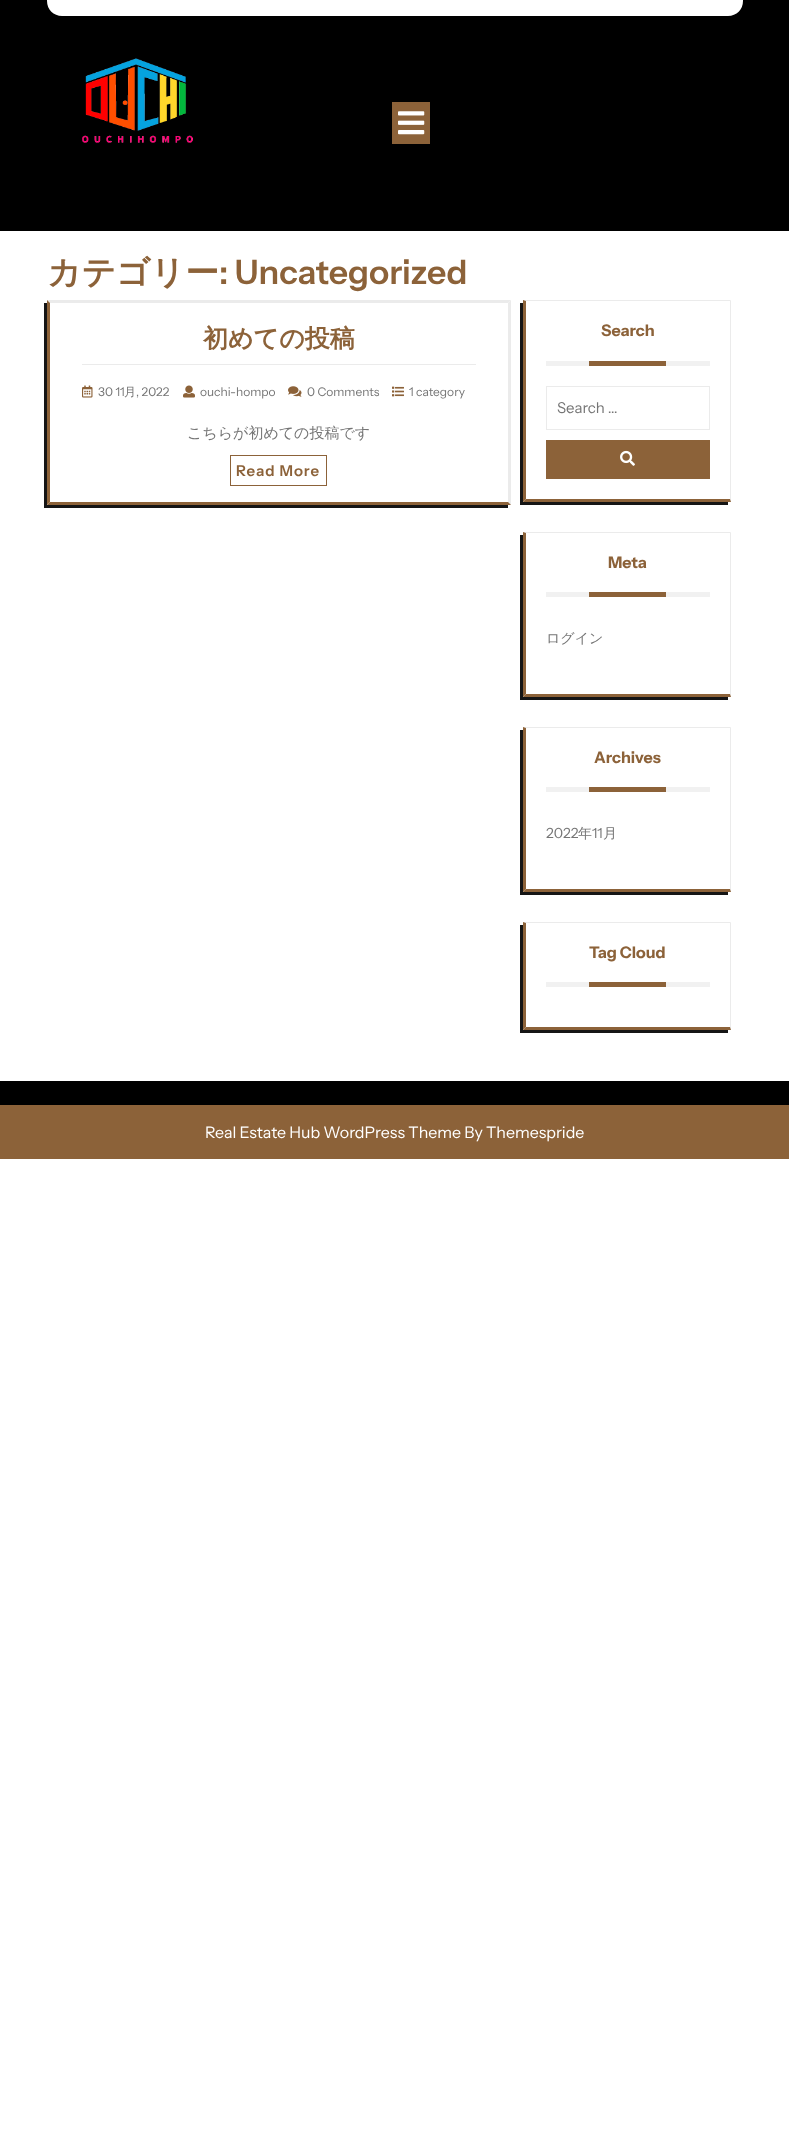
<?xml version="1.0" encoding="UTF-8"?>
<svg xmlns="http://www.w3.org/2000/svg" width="789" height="2133">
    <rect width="100%" height="100%" fill="#FFFFFF"/>
    <rect x="0" y="0" width="789" height="231" fill="#000000"/>
    <path d="M 47 0 H 743 V 1 C 743 9.5 736.5 16 728 16 H 62 C 53.5 16 47 9.5 47 1 Z" fill="#FFFFFF"/>
    <image x="82" y="58" width="111" height="85" href="img_01.png"/>
    <rect x="392" y="102" width="38" height="42" fill="#8C6239"/>
    <image x="398" y="111" width="27" height="24" href="img_02.png"/>
    <text x="47" y="284" font-family="WenQuanYi Zen Hei" font-size="33.75" font-weight="700" fill="#8C6239">カテゴリー</text>
    <text x="219" y="284" font-family="Instrument Sans" font-size="33.75" font-weight="600" fill="#8C6239">: Uncategorized</text>
    <path d="M 44 303 V 508 H 508 V 505 H 47 V 303 Z" fill="#151515"/>
    <path d="M 47 300 H 511 L 508 303 H 50 Z" fill="#EBEBEB"/>
    <path d="M 511 300 V 505 L 508 502 V 303 Z" fill="#EBEBEB"/>
    <path d="M 511 505 H 47 L 50 502 H 508 Z" fill="#8C6239"/>
    <path d="M 47 505 V 300 L 50 303 V 502 Z" fill="#8C6239"/>
    <rect x="82" y="364" width="394" height="1" fill="#EBEBEB"/>
    <text x="203" y="347" font-family="WenQuanYi Zen Hei" font-size="25" font-weight="700" fill="#8C6239">初めての投稿</text>
    <image x="82" y="385" width="11" height="13" href="img_03.png"/>
    <text x="98" y="396" font-family="Instrument Sans" font-size="12" fill="#757575">30 11</text>
    <text x="124" y="396" font-family="WenQuanYi Zen Hei" font-size="12" font-weight="500" fill="#757575">月</text>
    <text x="136" y="396" font-family="Instrument Sans" font-size="12" fill="#757575">, 2022</text>
    <image x="183" y="385" width="12" height="13" href="img_04.png"/>
    <text x="200" y="396" font-family="Instrument Sans" font-size="12" fill="#757575">ouchi-hompo</text>
    <image x="288" y="386" width="14" height="11" href="img_05.png"/>
    <text x="307" y="396" font-family="Instrument Sans" font-size="12" fill="#757575">0 Comments</text>
    <image x="392" y="386" width="12" height="11" href="img_06.png"/>
    <text x="409" y="396" font-family="Instrument Sans" font-size="12" fill="#757575">1 category</text>
    <text x="187" y="438" font-family="WenQuanYi Zen Hei" font-size="15" font-weight="500" fill="#757575">こちらが初めての投稿です</text>
    <rect x="230.5" y="455.5" width="96" height="30" fill="none" stroke="#8C6239"/>
    <text x="236" y="476" font-family="Instrument Sans" font-size="15" font-weight="600" letter-spacing="1" fill="#8C6239">Read More</text>
    <path d="M 520 303 V 505 H 728 V 502 H 523 V 303 Z" fill="#151515"/>
    <path d="M 523 300 H 731 L 730 301 H 526 Z" fill="#EBEBEB"/>
    <path d="M 731 300 V 502 L 730 499 V 301 Z" fill="#EBEBEB"/>
    <path d="M 731 502 H 523 L 526 499 H 730 Z" fill="#8C6239"/>
    <path d="M 523 502 V 300 L 526 301 V 499 Z" fill="#8C6239"/>
    <rect x="546" y="361" width="164" height="5" fill="#F1F1F1"/>
    <text x="601" y="336" font-family="Instrument Sans" font-size="16" font-weight="700" fill="#8C6239">Search</text>
    <rect x="589" y="361" width="77" height="5" fill="#8C6239"/>
    <rect x="546.5" y="386.5" width="163" height="43" fill="none" stroke="#EBEBEB"/>
    <text x="557" y="413" font-family="Instrument Sans" font-size="15" fill="#757575">Search …</text>
    <rect x="546" y="440" width="164" height="39" fill="#8C6239"/>
    <image x="620" y="450" width="15" height="16" href="img_07.png"/>
    <path d="M 520 535 V 700 H 728 V 697 H 523 V 535 Z" fill="#151515"/>
    <path d="M 523 532 H 731 L 730 533 H 526 Z" fill="#EBEBEB"/>
    <path d="M 731 532 V 697 L 730 694 V 533 Z" fill="#EBEBEB"/>
    <path d="M 731 697 H 523 L 526 694 H 730 Z" fill="#8C6239"/>
    <path d="M 523 697 V 532 L 526 533 V 694 Z" fill="#8C6239"/>
    <rect x="546" y="592" width="164" height="5" fill="#F1F1F1"/>
    <text x="608" y="568" font-family="Instrument Sans" font-size="16" font-weight="700" fill="#8C6239">Meta</text>
    <rect x="589" y="592" width="77" height="5" fill="#8C6239"/>
    <text x="546" y="643" font-family="WenQuanYi Zen Hei" font-size="14" font-weight="500" fill="#757575">ログイン</text>
    <path d="M 520 730 V 895 H 728 V 892 H 523 V 730 Z" fill="#151515"/>
    <path d="M 523 727 H 731 L 730 728 H 526 Z" fill="#EBEBEB"/>
    <path d="M 731 727 V 892 L 730 889 V 728 Z" fill="#EBEBEB"/>
    <path d="M 731 892 H 523 L 526 889 H 730 Z" fill="#8C6239"/>
    <path d="M 523 892 V 727 L 526 728 V 889 Z" fill="#8C6239"/>
    <rect x="546" y="787" width="164" height="5" fill="#F1F1F1"/>
    <text x="594" y="763" font-family="Instrument Sans" font-size="16" font-weight="700" fill="#8C6239">Archives</text>
    <rect x="589" y="787" width="77" height="5" fill="#8C6239"/>
    <text x="546" y="838" font-family="Instrument Sans" font-size="14" fill="#757575">2022</text>
    <text x="578" y="838" font-family="WenQuanYi Zen Hei" font-size="14" font-weight="500" fill="#757575">年</text>
    <text x="592" y="838" font-family="Instrument Sans" font-size="14" fill="#757575">11</text>
    <text x="603" y="838" font-family="WenQuanYi Zen Hei" font-size="14" font-weight="500" fill="#757575">月</text>
    <path d="M 520 925 V 1033 H 728 V 1030 H 523 V 925 Z" fill="#151515"/>
    <path d="M 523 922 H 731 L 730 923 H 526 Z" fill="#EBEBEB"/>
    <path d="M 731 922 V 1030 L 730 1027 V 923 Z" fill="#EBEBEB"/>
    <path d="M 731 1030 H 523 L 526 1027 H 730 Z" fill="#8C6239"/>
    <path d="M 523 1030 V 922 L 526 923 V 1027 Z" fill="#8C6239"/>
    <rect x="546" y="982" width="164" height="5" fill="#F1F1F1"/>
    <text x="589" y="958" font-family="Instrument Sans" font-size="16" font-weight="700" fill="#8C6239">Tag Cloud</text>
    <rect x="589" y="982" width="77" height="5" fill="#8C6239"/>
    <rect x="0" y="1081" width="789" height="24" fill="#000000"/>
    <rect x="0" y="1105" width="789" height="54" fill="#8C6239"/>
    <text x="205" y="1138" font-family="Instrument Sans" font-size="16" fill="#FFFFFF">Real Estate Hub WordPress Theme By Themespride</text>
</svg>
